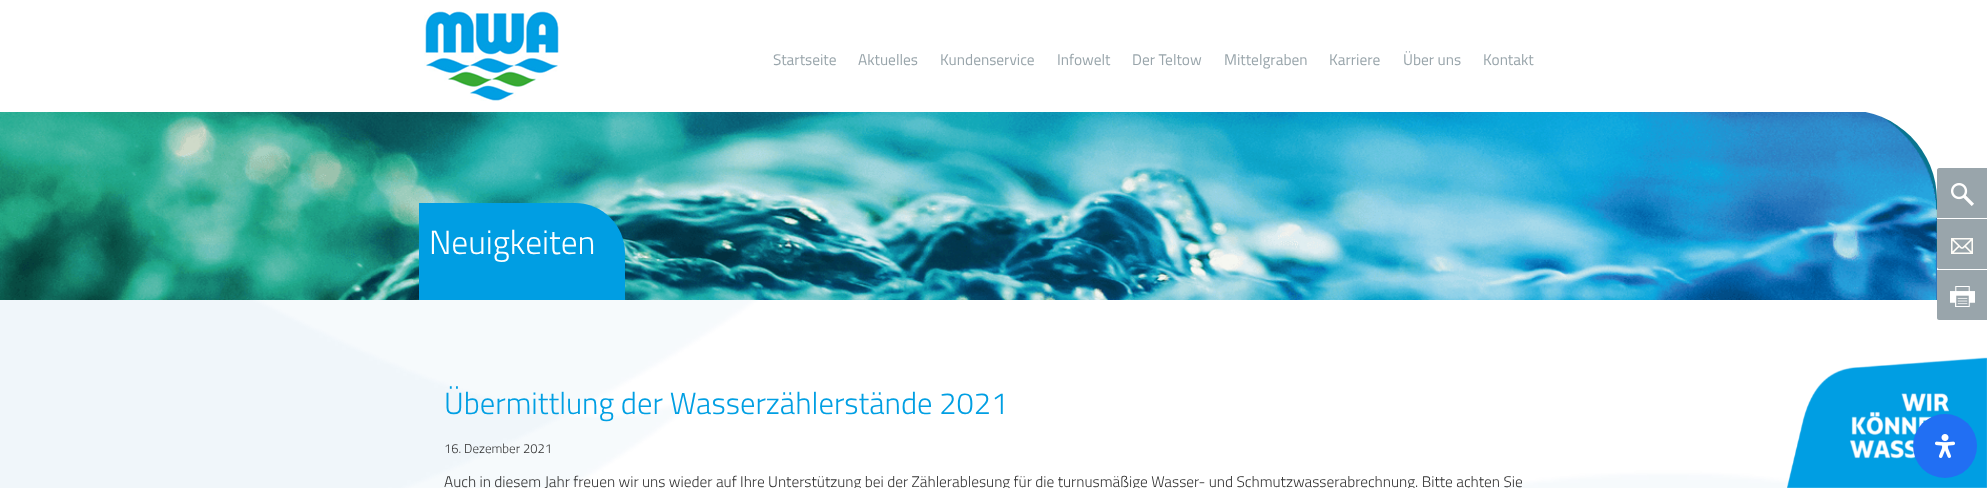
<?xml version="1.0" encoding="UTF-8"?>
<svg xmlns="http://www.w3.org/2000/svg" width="1987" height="488">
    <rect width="100%" height="100%" fill="#FFFFFF"/>
    <image x="0" y="300" width="1821" height="188" href="img_01.png"/>
    <image x="424" y="10" width="136" height="91" href="img_02.png"/>
    <text x="773" y="65" font-family="Titillium Web" font-size="15.4" fill="#99A5AB">Startseite</text>
    <text x="858" y="65" font-family="Titillium Web" font-size="15.4" fill="#99A5AB">Aktuelles</text>
    <text x="940" y="65" font-family="Titillium Web" font-size="15.4" fill="#99A5AB">Kundenservice</text>
    <text x="1057" y="65" font-family="Titillium Web" font-size="15.4" fill="#99A5AB">Infowelt</text>
    <text x="1132" y="65" font-family="Titillium Web" font-size="15.4" fill="#99A5AB">Der Teltow</text>
    <text x="1224" y="65" font-family="Titillium Web" font-size="15.4" fill="#99A5AB">Mittelgraben</text>
    <text x="1329" y="65" font-family="Titillium Web" font-size="15.4" fill="#99A5AB">Karriere</text>
    <text x="1403" y="65" font-family="Titillium Web" font-size="15.4" fill="#99A5AB">Über uns</text>
    <text x="1483" y="65" font-family="Titillium Web" font-size="15.4" fill="#99A5AB">Kontakt</text>
    <image x="0" y="112" width="1937" height="188" href="img_03.png"/>
    <path d="M 419 203 H 575 C 602.5 203 625 225.5 625 253 V 300 H 419 Z" fill="#009EE3"/>
    <text x="429" y="254" font-family="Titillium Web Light" font-size="33.5" font-weight="300" fill="#FFFFFF">Neuigkeiten</text>
    <path d="M 1939 168 H 1987 V 218 H 1937 V 170 C 1937 169 1938 168 1939 168 Z" fill="#99A5AB"/>
    <image x="1951" y="183" width="23" height="23" href="img_04.png"/>
    <path d="M 1937 219 H 1987 V 269 H 1939 C 1938 269 1937 268 1937 267 Z" fill="#99A5AB"/>
    <image x="1951" y="238" width="22" height="16" href="img_05.png"/>
    <path d="M 1937 270 H 1987 V 320 H 1939 C 1938 320 1937 319 1937 318 Z" fill="#99A5AB"/>
    <image x="1950" y="286" width="25" height="21" href="img_06.png"/>
    <text x="444" y="414" font-family="Titillium Web Light" font-size="30.75" font-weight="300" fill="#009FE3">Übermittlung der Wasserzählerstände 2021</text>
    <text x="444" y="453" font-family="Titillium Web Light" font-size="13" font-weight="300" fill="#333333">16. Dezember 2021</text>
    <text x="444" y="487" font-family="Titillium Web Light" font-size="15.4" font-weight="300" fill="#333333">Auch in diesem Jahr freuen wir uns wieder auf Ihre Unterstützung bei der Zählerablesung für die turnusmäßige Wasser- und Schmutzwasserabrechnung. Bitte achten Sie</text>
    <image x="1787" y="357" width="200" height="131" href="img_07.png"/>
    <circle cx="1945" cy="446" r="32" fill="#216FF3"/>
    <image x="1935" y="434" width="20" height="24" href="img_08.png"/>
</svg>
